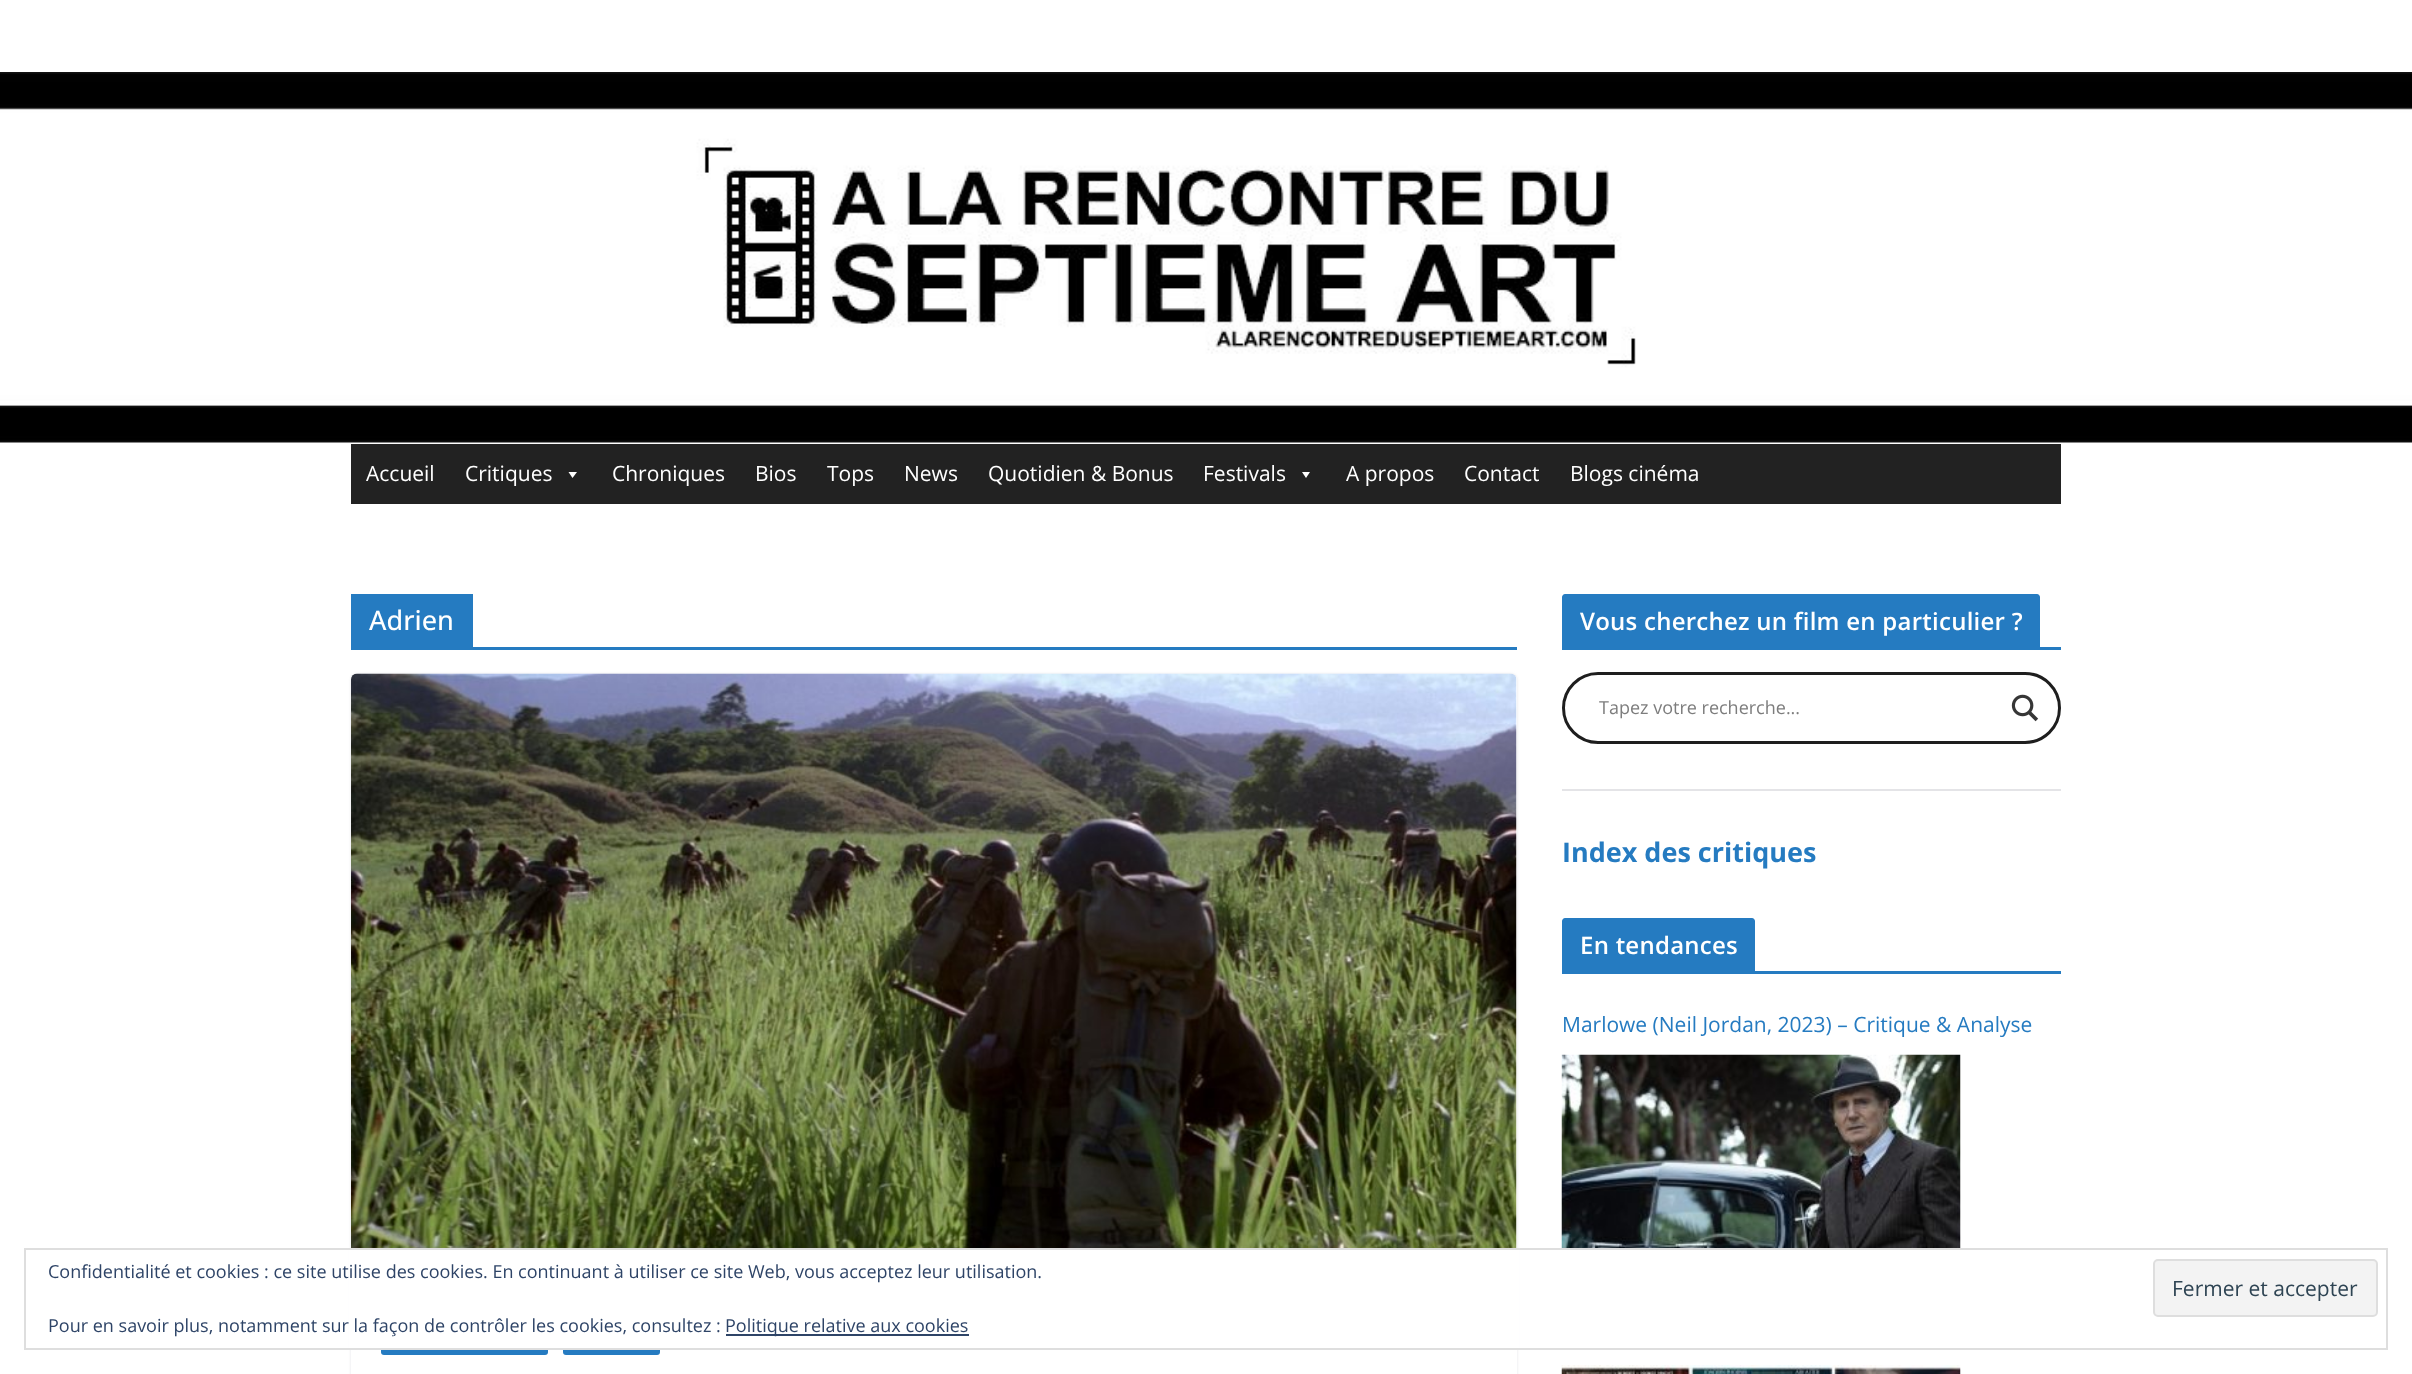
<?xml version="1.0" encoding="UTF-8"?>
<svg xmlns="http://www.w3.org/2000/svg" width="2412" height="1374">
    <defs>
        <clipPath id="clip1"><path d="M 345 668 H 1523 V 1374 H 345 Z M 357 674 H 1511 C 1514.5 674 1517 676.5 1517 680 V 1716 C 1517 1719.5 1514.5 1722 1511 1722 H 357 C 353.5 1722 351 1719.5 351 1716 V 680 C 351 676.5 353.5 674 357 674 Z" clip-rule="evenodd"/></clipPath>
        <filter id="blur1" x="-50%" y="-200%" width="200%" height="500%"><feGaussianBlur stdDeviation="1.5"/></filter>
    </defs>
    <rect width="100%" height="100%" fill="#FFFFFF"/>
    <image x="0" y="72" width="2412" height="371" href="img_01.png"/>
    <rect x="351" y="444" width="1710" height="60" fill="#222222"/>
    <text x="366" y="481" font-family="Open Sans" font-size="21" fill="#FFFFFF">Accueil</text>
    <text x="465" y="481" font-family="Open Sans" font-size="21" fill="#FFFFFF">Critiques</text>
    <path d="M 577 472 L 572.5 478 L 568.5 472 Z" fill="#FFFFFF"/>
    <text x="612" y="481" font-family="Open Sans" font-size="21" fill="#FFFFFF">Chroniques</text>
    <text x="755" y="481" font-family="Open Sans" font-size="21" fill="#FFFFFF">Bios</text>
    <text x="827" y="481" font-family="Open Sans" font-size="21" fill="#FFFFFF">Tops</text>
    <text x="904" y="481" font-family="Open Sans" font-size="21" fill="#FFFFFF">News</text>
    <text x="988" y="481" font-family="Open Sans" font-size="21" fill="#FFFFFF">Quotidien &amp; Bonus</text>
    <text x="1203" y="481" font-family="Open Sans" font-size="21" fill="#FFFFFF">Festivals</text>
    <path d="M 1310 472 L 1306 478 L 1302 472 Z" fill="#FFFFFF"/>
    <text x="1346" y="481" font-family="Open Sans" font-size="21" fill="#FFFFFF">A propos</text>
    <text x="1464" y="481" font-family="Open Sans" font-size="21" fill="#FFFFFF">Contact</text>
    <text x="1570" y="481" font-family="Open Sans" font-size="21" fill="#FFFFFF">Blogs cinéma</text>
    <rect x="351" y="647" width="1166" height="3" fill="#257BC1"/>
    <rect x="351" y="594" width="122" height="53" fill="#257BC1"/>
    <text x="369" y="630" font-family="Open Sans" font-size="27" font-weight="500" fill="#FFFFFF">Adrien</text>
    <g clip-path="url(#clip1)">
        <rect x="351" y="674" width="1166" height="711" rx="6" fill="#E4E4E7" filter="url(#blur1)"/>
    </g>
    <image x="351" y="673" width="1166" height="575" href="img_02.png"/>
    <rect x="381" y="1316" width="167" height="39" rx="3" fill="#257BC1"/>
    <rect x="563" y="1316" width="97" height="39" rx="3" fill="#257BC1"/>
    <rect x="1562" y="647" width="499" height="3" fill="#257BC1"/>
    <path d="M 1565 594 H 2037 C 2038.5 594 2040 595.5 2040 597 V 647 H 1562 V 597 C 1562 595.5 1563.5 594 1565 594 Z" fill="#257BC1"/>
    <text x="1580" y="630" font-family="Open Sans" font-size="24" font-weight="600" letter-spacing="0.25" fill="#FFFFFF">Vous cherchez un film en particulier ?</text>
    <rect x="1563.5" y="673.5" width="496" height="69" rx="34.5" fill="none" stroke="#1E1E1E" stroke-width="3"/>
    <text x="1599" y="714" font-family="Open Sans" font-size="18" fill="#7D7D7D">Tapez votre recherche...</text>
    <image x="2011" y="694" width="28" height="28" href="img_03.png"/>
    <rect x="1562" y="789" width="499" height="2" fill="#E4E4E7"/>
    <text x="1562" y="862" font-family="Open Sans" font-size="27" font-weight="700" fill="#257BC1">Index des critiques</text>
    <rect x="1562" y="971" width="499" height="3" fill="#257BC1"/>
    <path d="M 1565 918 H 1752 C 1753.5 918 1755 919.5 1755 921 V 971 H 1562 V 921 C 1562 919.5 1563.5 918 1565 918 Z" fill="#257BC1"/>
    <text x="1580" y="954" font-family="Open Sans" font-size="24" font-weight="600" letter-spacing="0.25" fill="#FFFFFF">En tendances</text>
    <text x="1562" y="1032" font-family="Open Sans" font-size="21" fill="#257BC1">Marlowe (Neil Jordan, 2023) – Critique &amp; Analyse</text>
    <image x="1561" y="1054" width="400" height="194" href="img_04.png"/>
    <image x="1561" y="1365" width="400" height="9" href="img_05.png"/>
    <rect x="349" y="1250" width="1170" height="98" fill="#FFFFFF"/>
    <rect x="25" y="1249" width="2362" height="100" fill="none" stroke="#DEDEDE" stroke-width="2"/>
    <text x="48" y="1278" font-family="Open Sans" font-size="18" fill="#2E4467">Confidentialité et cookies : ce site utilise des cookies. En continuant à utiliser ce site Web, vous acceptez leur utilisation.</text>
    <rect x="2154" y="1260" width="223" height="56" rx="4" fill="#F3F3F3" stroke="#DEDEDE" stroke-width="2"/>
    <text x="2172" y="1296" font-family="Open Sans" font-size="21" fill="#2E4453">Fermer et accepter</text>
    <text x="48" y="1332" font-family="Open Sans" font-size="18" fill="#2E4467">Pour en savoir plus, notamment sur la façon de contrôler les cookies, consultez :</text>
    <rect x="726" y="1334" width="243" height="2" fill="#2E4467"/>
    <text x="725" y="1332" font-family="Open Sans" font-size="18" fill="#2E4467">Politique relative aux cookies</text>
</svg>
